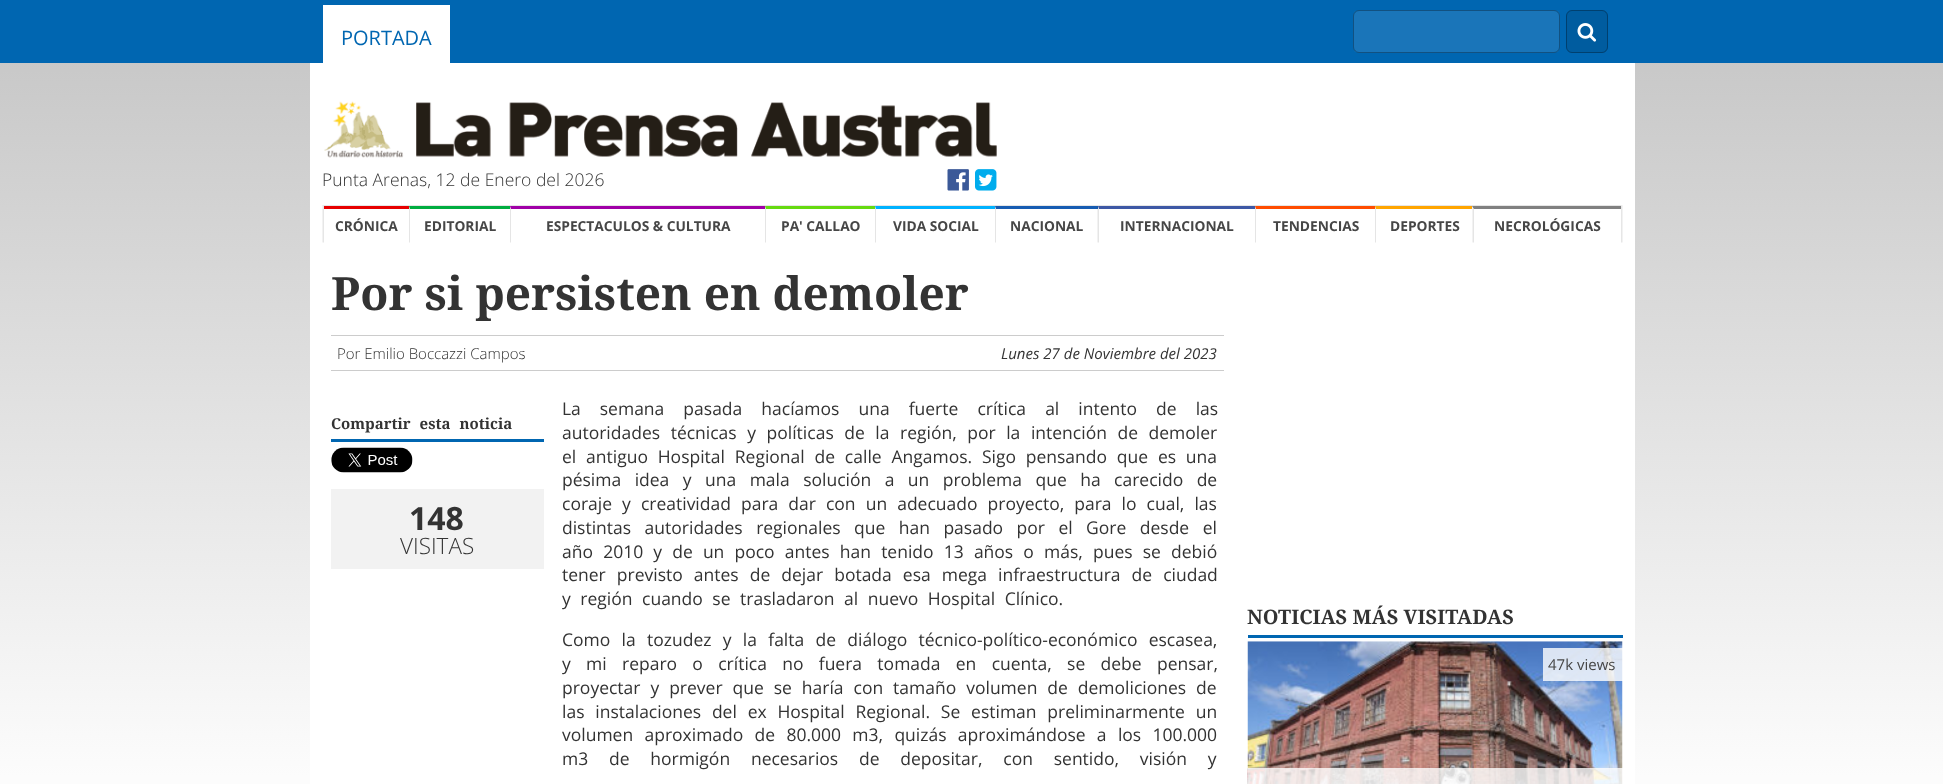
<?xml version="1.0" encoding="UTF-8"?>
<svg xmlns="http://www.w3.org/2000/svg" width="1943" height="784">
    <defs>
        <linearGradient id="g1" gradientUnits="userSpaceOnUse" x1="972" y1="0" x2="972" y2="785"><stop offset="0" stop-color="#C4C4C4"/><stop offset="0.99" stop-color="#FCFCFC"/></linearGradient>
    </defs>
    <rect width="100%" height="100%" fill="#FFFFFF"/>
    <rect x="0" y="63" width="1943" height="721" fill="url(#g1)"/>
    <rect x="0" y="0" width="1943" height="63" fill="#0066B1"/>
    <rect x="323" y="5" width="127" height="58" fill="#FFFFFF"/>
    <text x="341" y="45" font-family="Open Sans" font-size="20" fill="#0066B1">PORTADA</text>
    <rect x="1353" y="10" width="207" height="43" rx="6" fill="#1A75B9"/>
    <rect x="1353.5" y="10.5" width="206" height="42" rx="5.5" fill="none" stroke="#000000" stroke-opacity="0.3"/>
    <rect x="1566" y="10" width="42" height="43" rx="6" fill="#005C9F"/>
    <rect x="1566.5" y="10.5" width="41" height="42" rx="5.5" fill="none" stroke="#000000" stroke-opacity="0.3"/>
    <image x="1577" y="23" width="20" height="19" href="img_01.png"/>
    <rect x="310" y="63" width="1325" height="721" fill="#FFFFFF"/>
    <text x="322" y="186" font-family="Open Sans" font-size="17.5" font-weight="300" fill="#333333">Punta Arenas, 12 de Enero del 2026</text>
    <image x="324" y="101" width="673" height="72" href="img_02.png"/>
    <image x="947" y="169" width="22" height="22" href="img_03.png"/>
    <image x="975" y="169" width="22" height="22" href="img_04.png"/>
    <path d="M 322 205 H 1622 L 1621 206 H 324 Z" fill="#E6E6E6"/>
    <path d="M 1622.5 205 V 242.5 H 1621 V 206 Z" fill="#E6E6E6"/>
    <path d="M 322.5 242.5 V 205 L 324 206 V 242.5 Z" fill="#E6E6E6"/>
    <rect x="324" y="206" width="85" height="3" fill="#E70000"/>
    <text x="335" y="231" font-family="Open Sans" font-size="13.75" font-weight="700" fill="#464646">CRÓNICA</text>
    <path d="M 409 206 H 510 V 209 H 410 Z" fill="#00AD40"/>
    <path d="M 409 242.5 V 206 L 410 209 V 242.5 Z" fill="#000000" fill-opacity="0.1"/>
    <text x="424" y="231" font-family="Open Sans" font-size="13.75" font-weight="700" fill="#464646">EDITORIAL</text>
    <path d="M 510 206 H 765 V 209 H 511 Z" fill="#A000A7"/>
    <path d="M 510 242.5 V 206 L 511 209 V 242.5 Z" fill="#000000" fill-opacity="0.1"/>
    <text x="546" y="231" font-family="Open Sans" font-size="13.75" font-weight="700" fill="#464646">ESPECTACULOS &amp; CULTURA</text>
    <path d="M 765 206 H 875 V 209 H 766 Z" fill="#65DA0F"/>
    <path d="M 765 242.5 V 206 L 766 209 V 242.5 Z" fill="#000000" fill-opacity="0.1"/>
    <text x="781" y="231" font-family="Open Sans" font-size="13.75" font-weight="700" fill="#464646">PA' CALLAO</text>
    <path d="M 875 206 H 995 V 209 H 876 Z" fill="#00B2FF"/>
    <path d="M 875 242.5 V 206 L 876 209 V 242.5 Z" fill="#000000" fill-opacity="0.1"/>
    <text x="893" y="231" font-family="Open Sans" font-size="13.75" font-weight="700" fill="#464646">VIDA SOCIAL</text>
    <path d="M 995 206 H 1098 V 209 H 996 Z" fill="#165CB2"/>
    <path d="M 995 242.5 V 206 L 996 209 V 242.5 Z" fill="#000000" fill-opacity="0.1"/>
    <text x="1010" y="231" font-family="Open Sans" font-size="13.75" font-weight="700" fill="#464646">NACIONAL</text>
    <path d="M 1098 206 H 1255 V 209 H 1099 Z" fill="#3D58A5"/>
    <path d="M 1097.5 242.5 V 206 L 1099 209 V 242.5 Z" fill="#000000" fill-opacity="0.1"/>
    <text x="1120" y="231" font-family="Open Sans" font-size="13.75" font-weight="700" fill="#464646">INTERNACIONAL</text>
    <path d="M 1255 206 H 1375 V 209 H 1256 Z" fill="#FF4C00"/>
    <path d="M 1255 242.5 V 206 L 1256 209 V 242.5 Z" fill="#000000" fill-opacity="0.1"/>
    <text x="1273" y="231" font-family="Open Sans" font-size="13.75" font-weight="700" fill="#464646">TENDENCIAS</text>
    <path d="M 1375 206 H 1472 V 209 H 1376 Z" fill="#FFA500"/>
    <path d="M 1375 242.5 V 206 L 1376 209 V 242.5 Z" fill="#000000" fill-opacity="0.1"/>
    <text x="1390" y="231" font-family="Open Sans" font-size="13.75" font-weight="700" fill="#464646">DEPORTES</text>
    <path d="M 1472 206 H 1621 V 209 H 1474 Z" fill="#808080"/>
    <path d="M 1472.5 242.5 V 206 L 1474 209 V 242.5 Z" fill="#000000" fill-opacity="0.1"/>
    <text x="1494" y="231" font-family="Open Sans" font-size="13.75" font-weight="700" fill="#464646">NECROLÓGICAS</text>
    <text x="331" y="310" font-family="Droid Serif" font-size="46" font-weight="700" fill="#333333">Por si persisten en demoler</text>
    <rect x="331" y="335" width="893" height="1" fill="#CCCCCC"/>
    <rect x="331" y="370" width="893" height="1" fill="#CCCCCC"/>
    <text x="337" y="359" font-family="Open Sans" font-size="15" font-weight="300" fill="#333333">Por Emilio Boccazzi Campos</text>
    <text x="1001" y="359" font-family="Open Sans" font-size="15" font-style="italic" fill="#333333">Lunes 27 de Noviembre del 2023</text>
    <rect x="331" y="439" width="213" height="3" fill="#0066B1"/>
    <text x="331" y="429" word-spacing="5" font-family="Droid Serif" font-size="15" font-weight="700" fill="#333333">Compartir esta noticia</text>
    <image x="331" y="447" width="82" height="26" href="img_05.png"/>
    <rect x="331" y="489" width="213" height="80" fill="#F2F2F2"/>
    <text x="409" y="530" font-family="Open Sans" font-size="32" font-weight="700" fill="#333333">148</text>
    <text x="400" y="554" font-family="Open Sans" font-size="22.5" font-weight="300" fill="#333333">VISITAS</text>
    <text x="562" y="415" font-family="Open Sans" font-size="17.5" fill="#333333">L</text>
    <text x="571" y="415" word-spacing="14.5" font-family="Open Sans" font-size="17.5" fill="#333333">a semana pasada hacíamos una fuerte crítica al intento de las</text>
    <text font-family="Open Sans" font-size="17.5" fill="#333333">
        <tspan x="562" y="439" word-spacing="6">autoridades técnicas y políticas de la región, por la intención de demoler</tspan>
        <tspan x="562" y="463" word-spacing="5.25">el antiguo Hospital Regional de calle Angamos. Sigo pensando que es una</tspan>
        <tspan x="562" y="486" word-spacing="8.9">pésima idea y una mala solución a un problema que ha carecido de</tspan>
        <tspan x="562" y="510" word-spacing="5.5">coraje y creatividad para dar con un adecuado proyecto, para lo cual, las</tspan>
        <tspan x="562" y="534" word-spacing="8.9">distintas autoridades regionales que han pasado por el Gore desde el</tspan>
        <tspan x="562" y="558" word-spacing="5.6">año 2010 y de un poco antes han tenido 13 años o más, pues se debió</tspan>
        <tspan x="562" y="581" word-spacing="6.5">tener previsto antes de dejar botada esa mega infraestructura de ciudad</tspan>
        <tspan x="562" y="605" word-spacing="5">y región cuando se trasladaron al nuevo Hospital Clínico.</tspan>
    </text>
    <text font-family="Open Sans" font-size="17.5" fill="#333333">
        <tspan x="562" y="646" word-spacing="6.75">Como la tozudez y la falta de diálogo técnico-político-económico escasea,</tspan>
        <tspan x="562" y="670" word-spacing="10.75">y mi reparo o crítica no fuera tomada en cuenta, se debe pensar,</tspan>
        <tspan x="562" y="694" word-spacing="5.4">proyectar y prever que se haría con tamaño volumen de demoliciones de</tspan>
        <tspan x="562" y="718" word-spacing="6.25">las instalaciones del ex Hospital Regional. Se estiman preliminarmente un</tspan>
        <tspan x="562" y="741" word-spacing="6.75">volumen aproximado de 80.000 m3, quizás aproximándose a los 100.000</tspan>
        <tspan x="562" y="765" word-spacing="16.25">m3 de hormigón necesarios de depositar, con sentido, visión y</tspan>
    </text>
    <rect x="1248" y="635" width="375" height="3" fill="#0066B1"/>
    <text x="1247" y="624" font-family="Droid Serif" font-size="20" font-weight="700" fill="#333333">NOTICIAS MÁS VISITADAS</text>
    <image x="1247" y="641" width="376" height="143" href="img_06.png"/>
    <rect x="1543" y="648" width="80" height="33" fill="#FFFFFF" fill-opacity="0.8"/>
    <text x="1548" y="670" font-family="Open Sans" font-size="15" fill="#464646">47k views</text>
    <rect x="1248" y="768" width="375" height="16" fill="#FFFFFF" fill-opacity="0.8"/>
</svg>
